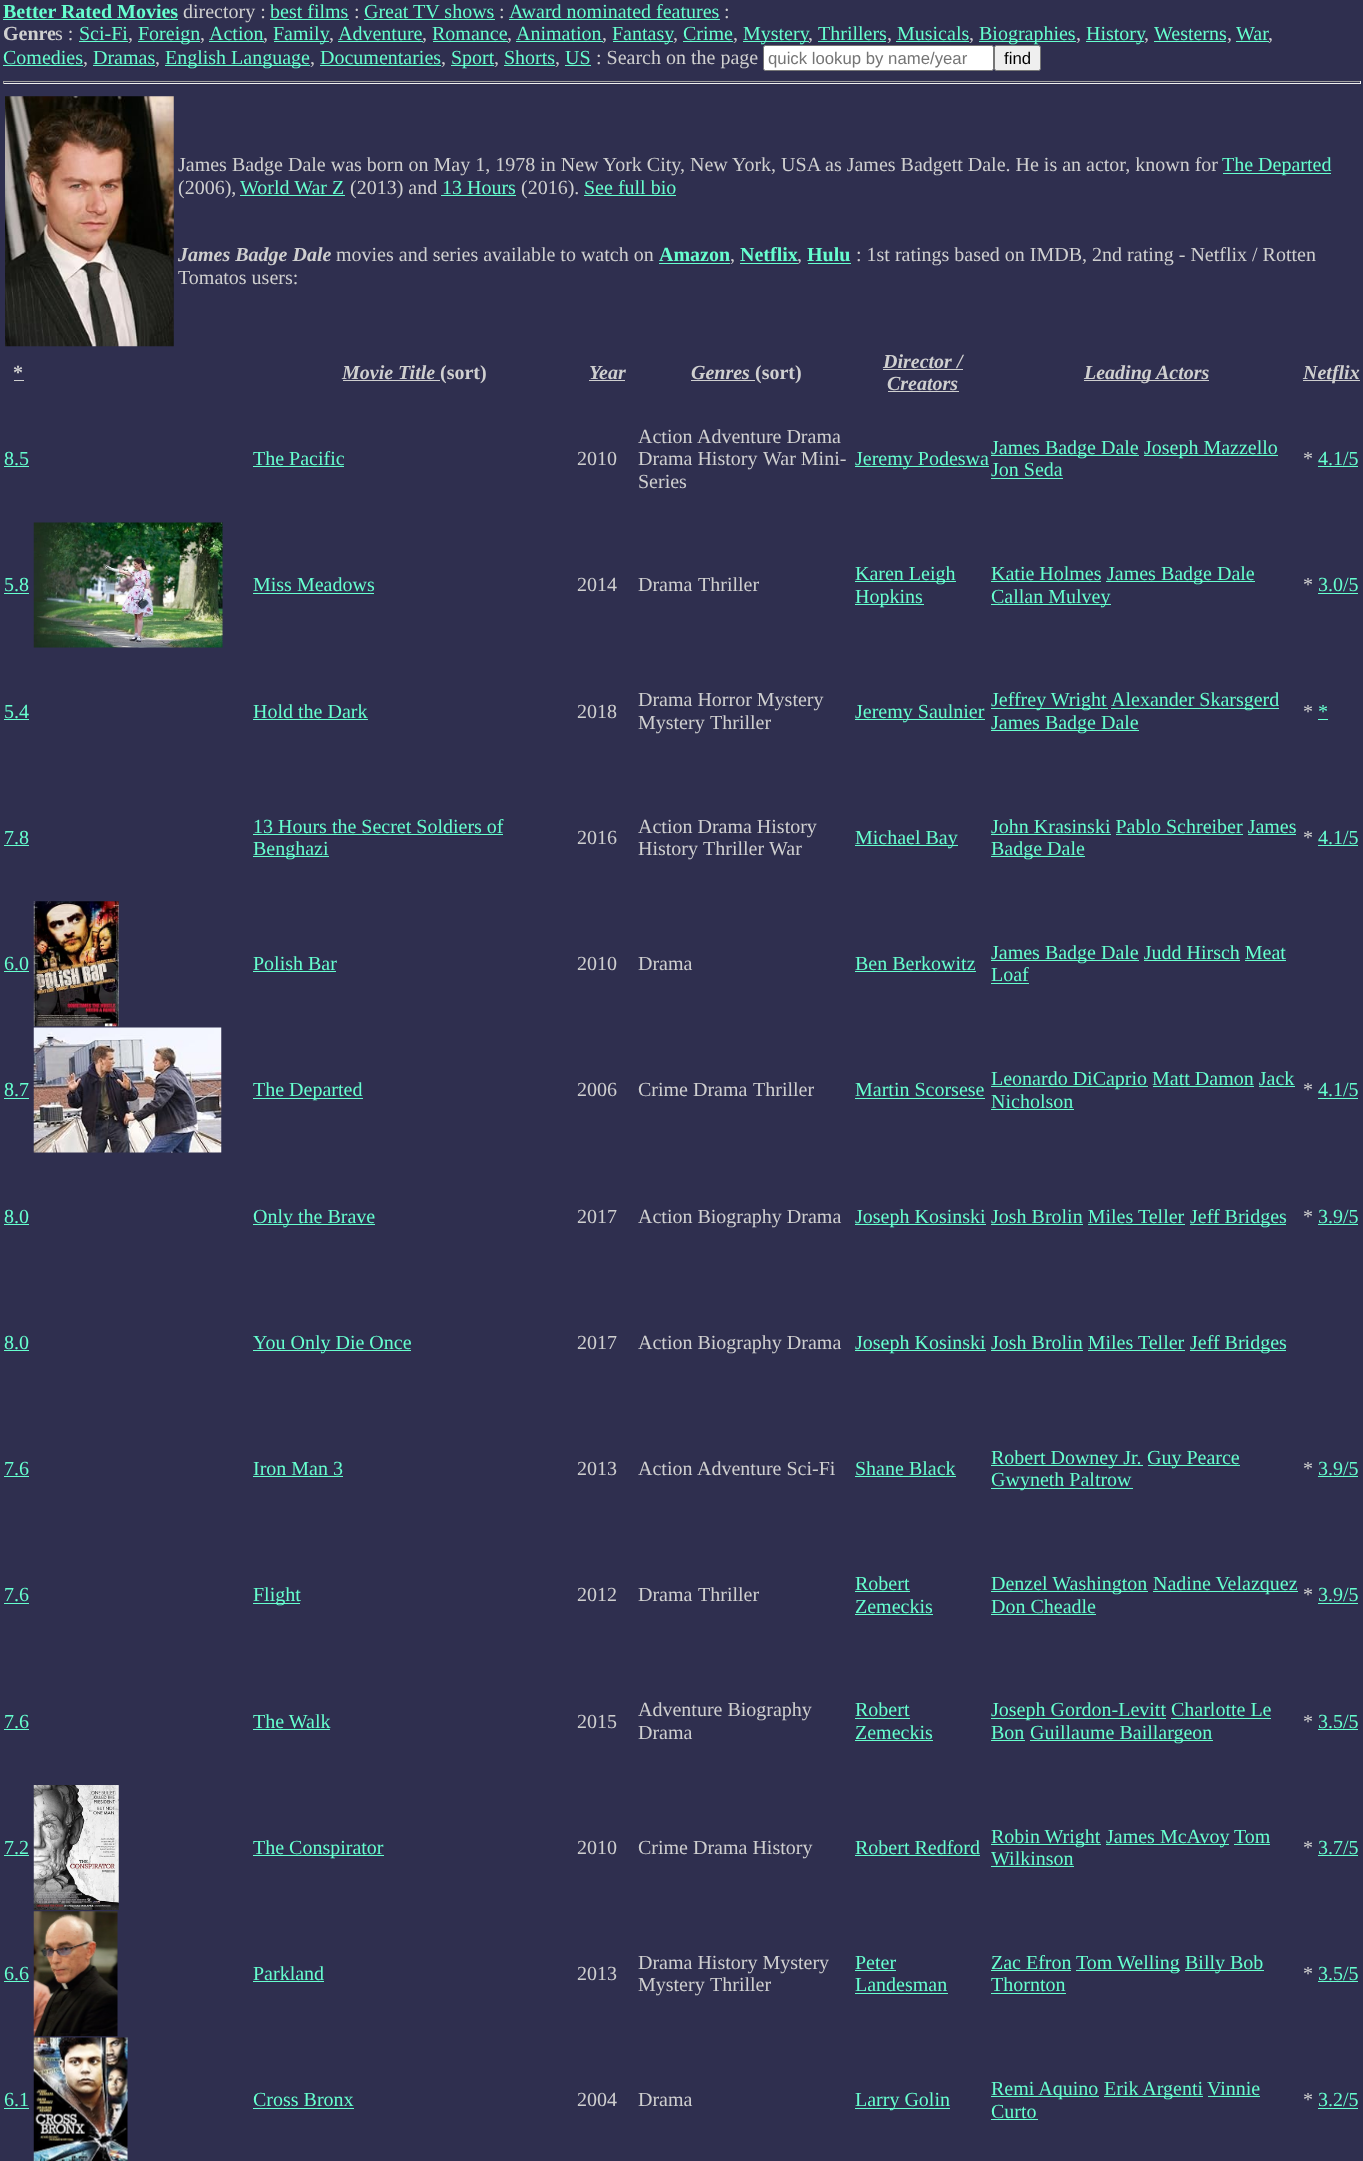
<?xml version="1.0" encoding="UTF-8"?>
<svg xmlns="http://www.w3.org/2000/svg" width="1363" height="2161">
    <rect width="100%" height="100%" fill="#2F2F4F"/>
    <text x="3" y="18" font-family="Liberation Serif" font-size="20" font-weight="700" fill="#66FFCF">Better Rated Movies</text>
    <rect x="3" y="19" width="175" height="1" fill="#66FFCF"/>
    <text x="183" y="18" font-family="Liberation Serif" font-size="20" fill="#CFCFCF">directory :</text>
    <text x="270" y="18" font-family="Liberation Serif" font-size="20" fill="#66FFCF">best films</text>
    <rect x="270" y="19" width="79" height="1" fill="#66FFCF"/>
    <text x="354" y="18" font-family="Liberation Serif" font-size="20" fill="#CFCFCF">:</text>
    <text x="364" y="18" font-family="Liberation Serif" font-size="20" fill="#66FFCF">Great TV shows</text>
    <rect x="364" y="19" width="131" height="1" fill="#66FFCF"/>
    <text x="499" y="18" font-family="Liberation Serif" font-size="20" fill="#CFCFCF">:</text>
    <text x="509" y="18" font-family="Liberation Serif" font-size="20" fill="#66FFCF">Award nominated features</text>
    <rect x="509" y="19" width="211" height="1" fill="#66FFCF"/>
    <text x="724" y="18" font-family="Liberation Serif" font-size="20" fill="#CFCFCF">:</text>
    <text x="3" y="40" font-family="Liberation Serif" font-size="20" font-weight="700" fill="#CFCFCF">Genre</text>
    <text x="55" y="40" font-family="Liberation Serif" font-size="20" fill="#CFCFCF">s :</text>
    <text x="79" y="40" font-family="Liberation Serif" font-size="20" fill="#66FFCF">Sci-Fi</text>
    <rect x="79" y="41" width="49" height="1" fill="#66FFCF"/>
    <text x="128" y="40" font-family="Liberation Serif" font-size="20" fill="#CFCFCF">,</text>
    <rect x="138" y="41" width="62" height="1" fill="#66FFCF"/>
    <text x="138" y="40" font-family="Liberation Serif" font-size="20" fill="#66FFCF">Foreign</text>
    <text x="200" y="40" font-family="Liberation Serif" font-size="20" fill="#CFCFCF">,</text>
    <text x="209" y="40" font-family="Liberation Serif" font-size="20" fill="#66FFCF">Action</text>
    <rect x="209" y="41" width="55" height="1" fill="#66FFCF"/>
    <text x="263" y="40" font-family="Liberation Serif" font-size="20" fill="#CFCFCF">,</text>
    <rect x="274" y="41" width="55" height="1" fill="#66FFCF"/>
    <text x="273" y="40" font-family="Liberation Serif" font-size="20" fill="#66FFCF">Family</text>
    <text x="329" y="40" font-family="Liberation Serif" font-size="20" fill="#CFCFCF">,</text>
    <text x="338" y="40" font-family="Liberation Serif" font-size="20" fill="#66FFCF">Adventure</text>
    <rect x="338" y="41" width="85" height="1" fill="#66FFCF"/>
    <text x="422" y="40" font-family="Liberation Serif" font-size="20" fill="#CFCFCF">,</text>
    <text x="432" y="40" font-family="Liberation Serif" font-size="20" fill="#66FFCF">Romance</text>
    <rect x="433" y="41" width="75" height="1" fill="#66FFCF"/>
    <text x="507" y="40" font-family="Liberation Serif" font-size="20" fill="#CFCFCF">,</text>
    <text x="516" y="40" font-family="Liberation Serif" font-size="20" fill="#66FFCF">Animation</text>
    <rect x="516" y="41" width="87" height="1" fill="#66FFCF"/>
    <text x="602" y="40" font-family="Liberation Serif" font-size="20" fill="#CFCFCF">,</text>
    <rect x="613" y="41" width="60" height="1" fill="#66FFCF"/>
    <text x="612" y="40" font-family="Liberation Serif" font-size="20" fill="#66FFCF">Fantasy</text>
    <text x="683" y="40" font-family="Liberation Serif" font-size="20" fill="#66FFCF">Crime</text>
    <rect x="683" y="41" width="50" height="1" fill="#66FFCF"/>
    <rect x="743" y="41" width="66" height="1" fill="#66FFCF"/>
    <text x="743" y="40" font-family="Liberation Serif" font-size="20" fill="#66FFCF">Mystery</text>
    <text x="818" y="40" font-family="Liberation Serif" font-size="20" fill="#66FFCF">Thrillers</text>
    <rect x="818" y="41" width="68" height="1" fill="#66FFCF"/>
    <text x="897" y="40" font-family="Liberation Serif" font-size="20" fill="#66FFCF">Musicals</text>
    <rect x="896" y="41" width="73" height="1" fill="#66FFCF"/>
    <rect x="979" y="41" width="97" height="1" fill="#66FFCF"/>
    <text x="979" y="40" font-family="Liberation Serif" font-size="20" fill="#66FFCF">Biographies</text>
    <rect x="1086" y="41" width="58" height="1" fill="#66FFCF"/>
    <text x="1086" y="40" font-family="Liberation Serif" font-size="20" fill="#66FFCF">History</text>
    <text x="1154" y="40" font-family="Liberation Serif" font-size="20" fill="#66FFCF">Westerns</text>
    <rect x="1154" y="41" width="72" height="1" fill="#66FFCF"/>
    <text x="1236" y="40" font-family="Liberation Serif" font-size="20" fill="#66FFCF">War</text>
    <rect x="1236" y="41" width="33" height="1" fill="#66FFCF"/>
    <text x="673" y="40" font-family="Liberation Serif" font-size="20" fill="#CFCFCF">,</text>
    <text x="733" y="40" font-family="Liberation Serif" font-size="20" fill="#CFCFCF">,</text>
    <text x="808" y="40" font-family="Liberation Serif" font-size="20" fill="#CFCFCF">,</text>
    <text x="887" y="40" font-family="Liberation Serif" font-size="20" fill="#CFCFCF">,</text>
    <text x="969" y="40" font-family="Liberation Serif" font-size="20" fill="#CFCFCF">,</text>
    <text x="1076" y="40" font-family="Liberation Serif" font-size="20" fill="#CFCFCF">,</text>
    <text x="1144" y="40" font-family="Liberation Serif" font-size="20" fill="#CFCFCF">,</text>
    <text x="1227" y="40" font-family="Liberation Serif" font-size="20" fill="#CFCFCF">,</text>
    <text x="1268" y="40" font-family="Liberation Serif" font-size="20" fill="#CFCFCF">,</text>
    <text x="3" y="64" font-family="Liberation Serif" font-size="20" fill="#66FFCF">Comedies</text>
    <rect x="3" y="65" width="80" height="1" fill="#66FFCF"/>
    <text x="83" y="64" font-family="Liberation Serif" font-size="20" fill="#CFCFCF">,</text>
    <text x="93" y="64" font-family="Liberation Serif" font-size="20" fill="#66FFCF">Dramas</text>
    <rect x="93" y="65" width="62" height="1" fill="#66FFCF"/>
    <text x="155" y="64" font-family="Liberation Serif" font-size="20" fill="#CFCFCF">,</text>
    <rect x="165" y="65" width="145" height="1" fill="#66FFCF"/>
    <text x="165" y="64" font-family="Liberation Serif" font-size="20" fill="#66FFCF">English Language</text>
    <text x="310" y="64" font-family="Liberation Serif" font-size="20" fill="#CFCFCF">,</text>
    <text x="320" y="64" font-family="Liberation Serif" font-size="20" fill="#66FFCF">Documentaries</text>
    <rect x="320" y="65" width="121" height="1" fill="#66FFCF"/>
    <text x="441" y="64" font-family="Liberation Serif" font-size="20" fill="#CFCFCF">,</text>
    <rect x="451" y="65" width="43" height="1" fill="#66FFCF"/>
    <text x="451" y="64" font-family="Liberation Serif" font-size="20" fill="#66FFCF">Sport</text>
    <text x="494" y="64" font-family="Liberation Serif" font-size="20" fill="#CFCFCF">,</text>
    <text x="504" y="64" font-family="Liberation Serif" font-size="20" fill="#66FFCF">Shorts</text>
    <rect x="504" y="65" width="51" height="1" fill="#66FFCF"/>
    <text x="555" y="64" font-family="Liberation Serif" font-size="20" fill="#CFCFCF">,</text>
    <text x="565" y="64" font-family="Liberation Serif" font-size="20" fill="#66FFCF">US</text>
    <rect x="565" y="65" width="26" height="1" fill="#66FFCF"/>
    <text x="596" y="64" font-family="Liberation Serif" font-size="20" fill="#CFCFCF">: Search on the page</text>
    <rect x="763.5" y="45.5" width="230" height="25" rx="2" fill="#FFFFFF" stroke="#767676"/>
    <text x="768" y="64" font-family="Liberation Sans" font-size="16.75" fill="#757575">quick lookup by name/year</text>
    <rect x="994.5" y="45.5" width="46" height="25" rx="2" fill="#EFEFEF" stroke="#767676"/>
    <text x="1004" y="64" font-family="Liberation Sans" font-size="16.75" fill="#000000">find</text>
    <rect x="3" y="81" width="1358" height="1" fill="#9F9F9F"/>
    <rect x="1360" y="81" width="1" height="3" fill="#EEEEEE"/>
    <rect x="3" y="83" width="1358" height="1" fill="#EEEEEE"/>
    <rect x="3" y="81" width="1" height="3" fill="#9F9F9F"/>
    <image x="5" y="96" width="169" height="251" href="img_01.png"/>
    <text x="178" y="171" font-family="Liberation Serif" font-size="20" fill="#CFCFCF">James Badge Dale was born on May 1, 1978 in New York City, New York, USA as James Badgett Dale. He is an actor, known for</text>
    <rect x="1223" y="173" width="108" height="1" fill="#66FFCF"/>
    <text x="1222" y="171" font-family="Liberation Serif" font-size="20" fill="#66FFCF">The Departed</text>
    <text x="178" y="194" font-family="Liberation Serif" font-size="20" fill="#CFCFCF">(2006),</text>
    <text x="240" y="194" font-family="Liberation Serif" font-size="20" fill="#66FFCF">World War Z</text>
    <rect x="240" y="195" width="105" height="1" fill="#66FFCF"/>
    <text x="350" y="194" font-family="Liberation Serif" font-size="20" fill="#CFCFCF">(2013) and</text>
    <text x="442" y="194" font-family="Liberation Serif" font-size="20" fill="#66FFCF">13 Hours</text>
    <rect x="441" y="195" width="75" height="1" fill="#66FFCF"/>
    <text x="521" y="194" font-family="Liberation Serif" font-size="20" fill="#CFCFCF">(2016).</text>
    <text x="584" y="194" font-family="Liberation Serif" font-size="20" fill="#66FFCF">See full bio</text>
    <rect x="584" y="195" width="92" height="1" fill="#66FFCF"/>
    <text x="178" y="261" font-family="Liberation Serif" font-size="20" font-weight="700" font-style="italic" fill="#CFCFCF">James Badge Dale</text>
    <text x="336" y="261" font-family="Liberation Serif" font-size="20" fill="#CFCFCF">movies and series available to watch on</text>
    <text x="659" y="261" font-family="Liberation Serif" font-size="20" font-weight="700" fill="#66FFCF">Amazon</text>
    <rect x="659" y="263" width="71" height="1" fill="#66FFCF"/>
    <text x="730" y="261" font-family="Liberation Serif" font-size="20" fill="#CFCFCF">,</text>
    <text x="740" y="261" font-family="Liberation Serif" font-size="20" font-weight="700" fill="#66FFCF">Netflix</text>
    <rect x="740" y="263" width="58" height="1" fill="#66FFCF"/>
    <text x="797" y="261" font-family="Liberation Serif" font-size="20" fill="#CFCFCF">,</text>
    <text x="807" y="261" font-family="Liberation Serif" font-size="20" font-weight="700" fill="#66FFCF">Hulu</text>
    <rect x="808" y="263" width="43" height="1" fill="#66FFCF"/>
    <text x="856" y="261" font-family="Liberation Serif" font-size="20" fill="#CFCFCF">: 1st ratings based on IMDB, 2nd rating - Netflix / Rotten</text>
    <text x="178" y="284" font-family="Liberation Serif" font-size="20" fill="#CFCFCF">Tomatos users:</text>
    <text x="13" y="379" font-family="Liberation Serif" font-size="20" font-weight="700" fill="#CFCFCF">*</text>
    <rect x="14" y="380" width="10" height="1" fill="#CFCFCF"/>
    <text x="342" y="379" font-family="Liberation Serif" font-size="20" font-weight="700" font-style="italic" fill="#CFCFCF">Movie Title</text>
    <rect x="343" y="380" width="97" height="1" fill="#CFCFCF"/>
    <text x="440" y="379" font-family="Liberation Serif" font-size="20" font-weight="700" fill="#CFCFCF">(sort)</text>
    <text x="589" y="379" font-family="Liberation Serif" font-size="20" font-weight="700" font-style="italic" fill="#CFCFCF">Year</text>
    <rect x="589" y="380" width="36" height="1" fill="#CFCFCF"/>
    <text x="691" y="379" font-family="Liberation Serif" font-size="20" font-weight="700" font-style="italic" fill="#CFCFCF">Genres</text>
    <rect x="691" y="380" width="64" height="1" fill="#CFCFCF"/>
    <text x="755" y="379" font-family="Liberation Serif" font-size="20" font-weight="700" fill="#CFCFCF">(sort)</text>
    <text x="883" y="368" font-family="Liberation Serif" font-size="20" font-weight="700" font-style="italic" fill="#CFCFCF">Director /</text>
    <rect x="883" y="369" width="80" height="1" fill="#CFCFCF"/>
    <text x="887" y="390" font-family="Liberation Serif" font-size="20" font-weight="700" font-style="italic" fill="#CFCFCF">Creators</text>
    <rect x="888" y="391" width="71" height="1" fill="#CFCFCF"/>
    <rect x="1084" y="380" width="125" height="1" fill="#CFCFCF"/>
    <text x="1084" y="379" font-family="Liberation Serif" font-size="20" font-weight="700" font-style="italic" fill="#CFCFCF">Leading Actors</text>
    <rect x="1303" y="380" width="57" height="1" fill="#CFCFCF"/>
    <text x="1303" y="379" font-family="Liberation Serif" font-size="20" font-weight="700" font-style="italic" fill="#CFCFCF">Netflix</text>
    <text x="4" y="465" font-family="Liberation Serif" font-size="20" fill="#66FFCF">8.5</text>
    <rect x="4" y="466" width="25" height="1" fill="#66FFCF"/>
    <text x="253" y="465" font-family="Liberation Serif" font-size="20" fill="#66FFCF">The Pacific</text>
    <rect x="253" y="466" width="91" height="1" fill="#66FFCF"/>
    <text x="577" y="465" font-family="Liberation Serif" font-size="20" fill="#CFCFCF">2010</text>
    <text x="638" y="443" font-family="Liberation Serif" font-size="20" fill="#CFCFCF">Action</text>
    <text x="697" y="443" font-family="Liberation Serif" font-size="20" fill="#CFCFCF">Adventure Drama</text>
    <text x="638" y="465" font-family="Liberation Serif" font-size="20" fill="#CFCFCF">Drama History</text>
    <text x="763" y="465" font-family="Liberation Serif" font-size="20" fill="#CFCFCF">War Mini-</text>
    <text x="638" y="488" font-family="Liberation Serif" font-size="20" fill="#CFCFCF">Series</text>
    <rect x="855" y="466" width="134" height="1" fill="#66FFCF"/>
    <text x="855" y="465" font-family="Liberation Serif" font-size="20" fill="#66FFCF">Jeremy Podeswa</text>
    <rect x="991" y="455" width="148" height="1" fill="#66FFCF"/>
    <text x="991" y="454" font-family="Liberation Serif" font-size="20" fill="#66FFCF">James Badge Dale</text>
    <rect x="1144" y="455" width="134" height="1" fill="#66FFCF"/>
    <text x="1144" y="454" font-family="Liberation Serif" font-size="20" fill="#66FFCF">Joseph Mazzello</text>
    <text x="991" y="476" font-family="Liberation Serif" font-size="20" fill="#66FFCF">Jon Seda</text>
    <rect x="991" y="478" width="72" height="1" fill="#66FFCF"/>
    <text x="1303" y="465" font-family="Liberation Serif" font-size="20" fill="#CFCFCF">*</text>
    <text x="1318" y="465" font-family="Liberation Serif" font-size="20" fill="#66FFCF">4.1/5</text>
    <rect x="1318" y="466" width="40" height="1" fill="#66FFCF"/>
    <text x="4" y="591" font-family="Liberation Serif" font-size="20" fill="#66FFCF">5.8</text>
    <rect x="4" y="593" width="25" height="1" fill="#66FFCF"/>
    <image x="33" y="522" width="190" height="126" href="img_02.png"/>
    <text x="253" y="591" font-family="Liberation Serif" font-size="20" fill="#66FFCF">Miss Meadows</text>
    <rect x="253" y="593" width="121" height="1" fill="#66FFCF"/>
    <text x="577" y="591" font-family="Liberation Serif" font-size="20" fill="#CFCFCF">2014</text>
    <text x="638" y="591" font-family="Liberation Serif" font-size="20" fill="#CFCFCF">Drama</text>
    <text x="698" y="591" font-family="Liberation Serif" font-size="20" fill="#CFCFCF">Thriller</text>
    <rect x="855" y="581" width="101" height="1" fill="#66FFCF"/>
    <text x="855" y="580" font-family="Liberation Serif" font-size="20" fill="#66FFCF">Karen Leigh</text>
    <rect x="855" y="604" width="69" height="1" fill="#66FFCF"/>
    <text x="855" y="603" font-family="Liberation Serif" font-size="20" fill="#66FFCF">Hopkins</text>
    <text x="991" y="580" font-family="Liberation Serif" font-size="20" fill="#66FFCF">Katie Holmes</text>
    <rect x="991" y="581" width="110" height="1" fill="#66FFCF"/>
    <rect x="1106" y="581" width="149" height="1" fill="#66FFCF"/>
    <text x="1107" y="580" font-family="Liberation Serif" font-size="20" fill="#66FFCF">James Badge Dale</text>
    <rect x="991" y="604" width="120" height="1" fill="#66FFCF"/>
    <text x="991" y="603" font-family="Liberation Serif" font-size="20" fill="#66FFCF">Callan Mulvey</text>
    <text x="1303" y="591" font-family="Liberation Serif" font-size="20" fill="#CFCFCF">*</text>
    <text x="1318" y="591" font-family="Liberation Serif" font-size="20" fill="#66FFCF">3.0/5</text>
    <rect x="1318" y="593" width="40" height="1" fill="#66FFCF"/>
    <text x="4" y="718" font-family="Liberation Serif" font-size="20" fill="#66FFCF">5.4</text>
    <rect x="4" y="719" width="25" height="1" fill="#66FFCF"/>
    <text x="253" y="718" font-family="Liberation Serif" font-size="20" fill="#66FFCF">Hold the Dark</text>
    <rect x="253" y="719" width="115" height="1" fill="#66FFCF"/>
    <text x="577" y="718" font-family="Liberation Serif" font-size="20" fill="#CFCFCF">2018</text>
    <text font-family="Liberation Serif" font-size="20" fill="#CFCFCF">
        <tspan x="638" y="706">Drama Horror Mystery</tspan>
        <tspan x="638" y="729">Mystery</tspan>
    </text>
    <text x="710" y="729" font-family="Liberation Serif" font-size="20" fill="#CFCFCF">Thriller</text>
    <rect x="855" y="719" width="130" height="1" fill="#66FFCF"/>
    <text x="855" y="718" font-family="Liberation Serif" font-size="20" fill="#66FFCF">Jeremy Saulnier</text>
    <rect x="991" y="708" width="117" height="1" fill="#66FFCF"/>
    <text x="991" y="706" font-family="Liberation Serif" font-size="20" fill="#66FFCF">Jeffrey Wright</text>
    <rect x="1111" y="708" width="168" height="1" fill="#66FFCF"/>
    <text x="1111" y="706" font-family="Liberation Serif" font-size="20" fill="#66FFCF">Alexander Skarsgerd</text>
    <rect x="991" y="730" width="148" height="1" fill="#66FFCF"/>
    <text x="991" y="729" font-family="Liberation Serif" font-size="20" fill="#66FFCF">James Badge Dale</text>
    <text x="1303" y="718" font-family="Liberation Serif" font-size="20" fill="#CFCFCF">*</text>
    <text x="1318" y="718" font-family="Liberation Serif" font-size="20" fill="#66FFCF">*</text>
    <rect x="1318" y="719" width="10" height="1" fill="#66FFCF"/>
    <text x="4" y="844" font-family="Liberation Serif" font-size="20" fill="#66FFCF">7.8</text>
    <rect x="4" y="845" width="25" height="1" fill="#66FFCF"/>
    <text x="253" y="833" font-family="Liberation Serif" font-size="20" fill="#66FFCF">13 Hours the Secret Soldiers of</text>
    <rect x="253" y="834" width="250" height="1" fill="#66FFCF"/>
    <rect x="253" y="856" width="76" height="1" fill="#66FFCF"/>
    <text x="253" y="855" font-family="Liberation Serif" font-size="20" fill="#66FFCF">Benghazi</text>
    <text x="577" y="844" font-family="Liberation Serif" font-size="20" fill="#CFCFCF">2016</text>
    <text font-family="Liberation Serif" font-size="20" fill="#CFCFCF">
        <tspan x="638" y="833">Action Drama History</tspan>
        <tspan x="638" y="855">History</tspan>
    </text>
    <text x="703" y="855" font-family="Liberation Serif" font-size="20" fill="#CFCFCF">Thriller</text>
    <text x="769" y="855" font-family="Liberation Serif" font-size="20" fill="#CFCFCF">War</text>
    <rect x="855" y="845" width="103" height="1" fill="#66FFCF"/>
    <text x="855" y="844" font-family="Liberation Serif" font-size="20" fill="#66FFCF">Michael Bay</text>
    <text x="991" y="833" font-family="Liberation Serif" font-size="20" fill="#66FFCF">John Krasinski Pablo Schreiber James</text>
    <rect x="991" y="834" width="120" height="1" fill="#66FFCF"/>
    <rect x="1116" y="834" width="127" height="1" fill="#66FFCF"/>
    <rect x="991" y="856" width="94" height="1" fill="#66FFCF"/>
    <text x="991" y="855" font-family="Liberation Serif" font-size="20" fill="#66FFCF">Badge Dale</text>
    <rect x="1248" y="834" width="48" height="1" fill="#66FFCF"/>
    <text x="1303" y="844" font-family="Liberation Serif" font-size="20" fill="#CFCFCF">*</text>
    <text x="1318" y="844" font-family="Liberation Serif" font-size="20" fill="#66FFCF">4.1/5</text>
    <rect x="1318" y="845" width="40" height="1" fill="#66FFCF"/>
    <text x="4" y="970" font-family="Liberation Serif" font-size="20" fill="#66FFCF">6.0</text>
    <rect x="4" y="971" width="25" height="1" fill="#66FFCF"/>
    <image x="33" y="901" width="86" height="126" href="img_03.png"/>
    <text x="253" y="970" font-family="Liberation Serif" font-size="20" fill="#66FFCF">Polish Bar</text>
    <rect x="253" y="971" width="83" height="1" fill="#66FFCF"/>
    <text x="577" y="970" font-family="Liberation Serif" font-size="20" fill="#CFCFCF">2010</text>
    <text x="638" y="970" font-family="Liberation Serif" font-size="20" fill="#CFCFCF">Drama</text>
    <text x="855" y="970" font-family="Liberation Serif" font-size="20" fill="#66FFCF">Ben Berkowitz</text>
    <rect x="855" y="971" width="121" height="1" fill="#66FFCF"/>
    <rect x="991" y="960" width="148" height="1" fill="#66FFCF"/>
    <text x="991" y="959" font-family="Liberation Serif" font-size="20" fill="#66FFCF">James Badge Dale Judd Hirsch Meat</text>
    <rect x="1144" y="960" width="96" height="1" fill="#66FFCF"/>
    <text x="991" y="981" font-family="Liberation Serif" font-size="20" fill="#66FFCF">Loaf</text>
    <rect x="1245" y="960" width="41" height="1" fill="#66FFCF"/>
    <rect x="991" y="983" width="38" height="1" fill="#66FFCF"/>
    <text x="4" y="1096" font-family="Liberation Serif" font-size="20" fill="#66FFCF">8.7</text>
    <rect x="4" y="1098" width="25" height="1" fill="#66FFCF"/>
    <image x="33" y="1027" width="189" height="126" href="img_04.png"/>
    <rect x="253" y="1098" width="110" height="1" fill="#66FFCF"/>
    <text x="253" y="1096" font-family="Liberation Serif" font-size="20" fill="#66FFCF">The Departed</text>
    <text x="577" y="1096" font-family="Liberation Serif" font-size="20" fill="#CFCFCF">2006</text>
    <text x="638" y="1096" font-family="Liberation Serif" font-size="20" fill="#CFCFCF">Crime Drama</text>
    <text x="753" y="1096" font-family="Liberation Serif" font-size="20" fill="#CFCFCF">Thriller</text>
    <text x="855" y="1096" font-family="Liberation Serif" font-size="20" fill="#66FFCF">Martin Scorsese</text>
    <rect x="855" y="1098" width="130" height="1" fill="#66FFCF"/>
    <rect x="991" y="1086" width="157" height="1" fill="#66FFCF"/>
    <text x="991" y="1085" font-family="Liberation Serif" font-size="20" fill="#66FFCF">Leonardo DiCaprio Matt Damon Jack</text>
    <rect x="1153" y="1086" width="101" height="1" fill="#66FFCF"/>
    <text x="991" y="1108" font-family="Liberation Serif" font-size="20" fill="#66FFCF">Nicholson</text>
    <rect x="1259" y="1086" width="36" height="1" fill="#66FFCF"/>
    <rect x="991" y="1109" width="83" height="1" fill="#66FFCF"/>
    <text x="1303" y="1096" font-family="Liberation Serif" font-size="20" fill="#CFCFCF">*</text>
    <text x="1318" y="1096" font-family="Liberation Serif" font-size="20" fill="#66FFCF">4.1/5</text>
    <rect x="1318" y="1098" width="40" height="1" fill="#66FFCF"/>
    <text x="4" y="1223" font-family="Liberation Serif" font-size="20" fill="#66FFCF">8.0</text>
    <rect x="4" y="1224" width="25" height="1" fill="#66FFCF"/>
    <rect x="253" y="1224" width="122" height="1" fill="#66FFCF"/>
    <text x="253" y="1223" font-family="Liberation Serif" font-size="20" fill="#66FFCF">Only the Brave</text>
    <text x="577" y="1223" font-family="Liberation Serif" font-size="20" fill="#CFCFCF">2017</text>
    <text x="638" y="1223" font-family="Liberation Serif" font-size="20" fill="#CFCFCF">Action Biography Drama</text>
    <rect x="855" y="1224" width="131" height="1" fill="#66FFCF"/>
    <text x="855" y="1223" font-family="Liberation Serif" font-size="20" fill="#66FFCF">Joseph Kosinski</text>
    <text x="991" y="1223" font-family="Liberation Serif" font-size="20" fill="#66FFCF">Josh Brolin Miles Teller</text>
    <rect x="991" y="1224" width="92" height="1" fill="#66FFCF"/>
    <rect x="1190" y="1224" width="96" height="1" fill="#66FFCF"/>
    <text x="1190" y="1223" font-family="Liberation Serif" font-size="20" fill="#66FFCF">Jeff Bridges</text>
    <rect x="1088" y="1224" width="97" height="1" fill="#66FFCF"/>
    <text x="1303" y="1223" font-family="Liberation Serif" font-size="20" fill="#CFCFCF">*</text>
    <text x="1318" y="1223" font-family="Liberation Serif" font-size="20" fill="#66FFCF">3.9/5</text>
    <rect x="1318" y="1224" width="40" height="1" fill="#66FFCF"/>
    <text x="4" y="1349" font-family="Liberation Serif" font-size="20" fill="#66FFCF">8.0</text>
    <rect x="4" y="1350" width="25" height="1" fill="#66FFCF"/>
    <rect x="253" y="1350" width="158" height="1" fill="#66FFCF"/>
    <text x="253" y="1349" font-family="Liberation Serif" font-size="20" fill="#66FFCF">You Only Die Once</text>
    <text x="577" y="1349" font-family="Liberation Serif" font-size="20" fill="#CFCFCF">2017</text>
    <text x="638" y="1349" font-family="Liberation Serif" font-size="20" fill="#CFCFCF">Action Biography Drama</text>
    <rect x="855" y="1350" width="131" height="1" fill="#66FFCF"/>
    <text x="855" y="1349" font-family="Liberation Serif" font-size="20" fill="#66FFCF">Joseph Kosinski</text>
    <text x="991" y="1349" font-family="Liberation Serif" font-size="20" fill="#66FFCF">Josh Brolin Miles Teller</text>
    <rect x="991" y="1350" width="92" height="1" fill="#66FFCF"/>
    <rect x="1190" y="1350" width="96" height="1" fill="#66FFCF"/>
    <text x="1190" y="1349" font-family="Liberation Serif" font-size="20" fill="#66FFCF">Jeff Bridges</text>
    <rect x="1088" y="1350" width="97" height="1" fill="#66FFCF"/>
    <text x="4" y="1475" font-family="Liberation Serif" font-size="20" fill="#66FFCF">7.6</text>
    <rect x="4" y="1476" width="25" height="1" fill="#66FFCF"/>
    <text x="253" y="1475" font-family="Liberation Serif" font-size="20" fill="#66FFCF">Iron Man 3</text>
    <rect x="253" y="1476" width="90" height="1" fill="#66FFCF"/>
    <text x="577" y="1475" font-family="Liberation Serif" font-size="20" fill="#CFCFCF">2013</text>
    <text x="638" y="1475" font-family="Liberation Serif" font-size="20" fill="#CFCFCF">Action</text>
    <text x="697" y="1475" font-family="Liberation Serif" font-size="20" fill="#CFCFCF">Adventure Sci-Fi</text>
    <text x="855" y="1475" font-family="Liberation Serif" font-size="20" fill="#66FFCF">Shane Black</text>
    <rect x="855" y="1476" width="101" height="1" fill="#66FFCF"/>
    <rect x="991" y="1465" width="152" height="1" fill="#66FFCF"/>
    <text x="991" y="1464" font-family="Liberation Serif" font-size="20" fill="#66FFCF">Robert Downey Jr.</text>
    <rect x="1148" y="1465" width="92" height="1" fill="#66FFCF"/>
    <text x="1147" y="1464" font-family="Liberation Serif" font-size="20" fill="#66FFCF">Guy Pearce</text>
    <rect x="991" y="1488" width="142" height="1" fill="#66FFCF"/>
    <text x="991" y="1486" font-family="Liberation Serif" font-size="20" fill="#66FFCF">Gwyneth Paltrow</text>
    <text x="1303" y="1475" font-family="Liberation Serif" font-size="20" fill="#CFCFCF">*</text>
    <text x="1318" y="1475" font-family="Liberation Serif" font-size="20" fill="#66FFCF">3.9/5</text>
    <rect x="1318" y="1476" width="40" height="1" fill="#66FFCF"/>
    <text x="4" y="1601" font-family="Liberation Serif" font-size="20" fill="#66FFCF">7.6</text>
    <rect x="4" y="1603" width="25" height="1" fill="#66FFCF"/>
    <rect x="253" y="1603" width="47" height="1" fill="#66FFCF"/>
    <text x="253" y="1601" font-family="Liberation Serif" font-size="20" fill="#66FFCF">Flight</text>
    <text x="577" y="1601" font-family="Liberation Serif" font-size="20" fill="#CFCFCF">2012</text>
    <text x="638" y="1601" font-family="Liberation Serif" font-size="20" fill="#CFCFCF">Drama</text>
    <text x="698" y="1601" font-family="Liberation Serif" font-size="20" fill="#CFCFCF">Thriller</text>
    <text x="855" y="1590" font-family="Liberation Serif" font-size="20" fill="#66FFCF">Robert</text>
    <rect x="855" y="1591" width="55" height="1" fill="#66FFCF"/>
    <text x="855" y="1613" font-family="Liberation Serif" font-size="20" fill="#66FFCF">Zemeckis</text>
    <rect x="855" y="1614" width="78" height="1" fill="#66FFCF"/>
    <rect x="991" y="1591" width="157" height="1" fill="#66FFCF"/>
    <text x="991" y="1590" font-family="Liberation Serif" font-size="20" fill="#66FFCF">Denzel Washington</text>
    <rect x="1153" y="1591" width="145" height="1" fill="#66FFCF"/>
    <text x="1153" y="1590" font-family="Liberation Serif" font-size="20" fill="#66FFCF">Nadine Velazquez</text>
    <text x="991" y="1613" font-family="Liberation Serif" font-size="20" fill="#66FFCF">Don Cheadle</text>
    <rect x="991" y="1614" width="105" height="1" fill="#66FFCF"/>
    <text x="1303" y="1601" font-family="Liberation Serif" font-size="20" fill="#CFCFCF">*</text>
    <text x="1318" y="1601" font-family="Liberation Serif" font-size="20" fill="#66FFCF">3.9/5</text>
    <rect x="1318" y="1603" width="40" height="1" fill="#66FFCF"/>
    <text x="4" y="1728" font-family="Liberation Serif" font-size="20" fill="#66FFCF">7.6</text>
    <rect x="4" y="1729" width="25" height="1" fill="#66FFCF"/>
    <text x="253" y="1728" font-family="Liberation Serif" font-size="20" fill="#66FFCF">The Walk</text>
    <rect x="253" y="1729" width="77" height="1" fill="#66FFCF"/>
    <text x="577" y="1728" font-family="Liberation Serif" font-size="20" fill="#CFCFCF">2015</text>
    <text font-family="Liberation Serif" font-size="20" fill="#CFCFCF">
        <tspan x="638" y="1716">Adventure Biography</tspan>
        <tspan x="638" y="1739">Drama</tspan>
    </text>
    <text x="855" y="1716" font-family="Liberation Serif" font-size="20" fill="#66FFCF">Robert</text>
    <rect x="855" y="1718" width="55" height="1" fill="#66FFCF"/>
    <text x="855" y="1739" font-family="Liberation Serif" font-size="20" fill="#66FFCF">Zemeckis</text>
    <rect x="855" y="1740" width="78" height="1" fill="#66FFCF"/>
    <rect x="991" y="1718" width="175" height="1" fill="#66FFCF"/>
    <text font-family="Liberation Serif" font-size="20" fill="#66FFCF">
        <tspan x="991" y="1716">Joseph Gordon-Levitt Charlotte Le</tspan>
        <tspan x="991" y="1739">Bon</tspan>
    </text>
    <rect x="1171" y="1718" width="100" height="1" fill="#66FFCF"/>
    <rect x="991" y="1740" width="34" height="1" fill="#66FFCF"/>
    <rect x="1030" y="1740" width="183" height="1" fill="#66FFCF"/>
    <text x="1030" y="1739" font-family="Liberation Serif" font-size="20" fill="#66FFCF">Guillaume Baillargeon</text>
    <text x="1303" y="1728" font-family="Liberation Serif" font-size="20" fill="#CFCFCF">*</text>
    <text x="1318" y="1728" font-family="Liberation Serif" font-size="20" fill="#66FFCF">3.5/5</text>
    <rect x="1318" y="1729" width="40" height="1" fill="#66FFCF"/>
    <text x="4" y="1854" font-family="Liberation Serif" font-size="20" fill="#66FFCF">7.2</text>
    <rect x="4" y="1855" width="25" height="1" fill="#66FFCF"/>
    <image x="33" y="1785" width="86" height="125" href="img_05.png"/>
    <rect x="253" y="1855" width="131" height="1" fill="#66FFCF"/>
    <text x="253" y="1854" font-family="Liberation Serif" font-size="20" fill="#66FFCF">The Conspirator</text>
    <text x="577" y="1854" font-family="Liberation Serif" font-size="20" fill="#CFCFCF">2010</text>
    <text x="638" y="1854" font-family="Liberation Serif" font-size="20" fill="#CFCFCF">Crime Drama History</text>
    <text x="855" y="1854" font-family="Liberation Serif" font-size="20" fill="#66FFCF">Robert Redford</text>
    <rect x="855" y="1855" width="125" height="1" fill="#66FFCF"/>
    <rect x="991" y="1844" width="110" height="1" fill="#66FFCF"/>
    <text x="991" y="1843" font-family="Liberation Serif" font-size="20" fill="#66FFCF">Robin Wright</text>
    <rect x="1106" y="1844" width="123" height="1" fill="#66FFCF"/>
    <text x="1106" y="1843" font-family="Liberation Serif" font-size="20" fill="#66FFCF">James McAvoy</text>
    <text x="1234" y="1843" font-family="Liberation Serif" font-size="20" fill="#66FFCF">Tom</text>
    <rect x="1234" y="1844" width="36" height="1" fill="#66FFCF"/>
    <text x="991" y="1865" font-family="Liberation Serif" font-size="20" fill="#66FFCF">Wilkinson</text>
    <rect x="991" y="1866" width="83" height="1" fill="#66FFCF"/>
    <text x="1303" y="1854" font-family="Liberation Serif" font-size="20" fill="#CFCFCF">*</text>
    <text x="1318" y="1854" font-family="Liberation Serif" font-size="20" fill="#66FFCF">3.7/5</text>
    <rect x="1318" y="1855" width="40" height="1" fill="#66FFCF"/>
    <text x="4" y="1980" font-family="Liberation Serif" font-size="20" fill="#66FFCF">6.6</text>
    <rect x="4" y="1981" width="25" height="1" fill="#66FFCF"/>
    <image x="33" y="1911" width="85" height="126" href="img_06.png"/>
    <text x="253" y="1980" font-family="Liberation Serif" font-size="20" fill="#66FFCF">Parkland</text>
    <rect x="253" y="1981" width="71" height="1" fill="#66FFCF"/>
    <text x="577" y="1980" font-family="Liberation Serif" font-size="20" fill="#CFCFCF">2013</text>
    <text font-family="Liberation Serif" font-size="20" fill="#CFCFCF">
        <tspan x="638" y="1969">Drama History Mystery</tspan>
        <tspan x="638" y="1991">Mystery</tspan>
    </text>
    <text x="710" y="1991" font-family="Liberation Serif" font-size="20" fill="#CFCFCF">Thriller</text>
    <text x="855" y="1969" font-family="Liberation Serif" font-size="20" fill="#66FFCF">Peter</text>
    <rect x="855" y="1970" width="41" height="1" fill="#66FFCF"/>
    <text x="855" y="1991" font-family="Liberation Serif" font-size="20" fill="#66FFCF">Landesman</text>
    <rect x="855" y="1993" width="93" height="1" fill="#66FFCF"/>
    <text x="991" y="1969" font-family="Liberation Serif" font-size="20" fill="#66FFCF">Zac Efron</text>
    <rect x="991" y="1970" width="80" height="1" fill="#66FFCF"/>
    <rect x="1076" y="1970" width="104" height="1" fill="#66FFCF"/>
    <text x="1076" y="1969" font-family="Liberation Serif" font-size="20" fill="#66FFCF">Tom Welling</text>
    <rect x="1185" y="1970" width="79" height="1" fill="#66FFCF"/>
    <text x="1185" y="1969" font-family="Liberation Serif" font-size="20" fill="#66FFCF">Billy Bob</text>
    <text x="991" y="1991" font-family="Liberation Serif" font-size="20" fill="#66FFCF">Thornton</text>
    <rect x="991" y="1993" width="75" height="1" fill="#66FFCF"/>
    <text x="1303" y="1980" font-family="Liberation Serif" font-size="20" fill="#CFCFCF">*</text>
    <text x="1318" y="1980" font-family="Liberation Serif" font-size="20" fill="#66FFCF">3.5/5</text>
    <rect x="1318" y="1981" width="40" height="1" fill="#66FFCF"/>
    <text x="4" y="2106" font-family="Liberation Serif" font-size="20" fill="#66FFCF">6.1</text>
    <rect x="4" y="2108" width="25" height="1" fill="#66FFCF"/>
    <image x="33" y="2037" width="95" height="124" href="img_07.png"/>
    <text x="253" y="2106" font-family="Liberation Serif" font-size="20" fill="#66FFCF">Cross Bronx</text>
    <rect x="253" y="2108" width="101" height="1" fill="#66FFCF"/>
    <text x="577" y="2106" font-family="Liberation Serif" font-size="20" fill="#CFCFCF">2004</text>
    <text x="638" y="2106" font-family="Liberation Serif" font-size="20" fill="#CFCFCF">Drama</text>
    <rect x="855" y="2108" width="95" height="1" fill="#66FFCF"/>
    <text x="855" y="2106" font-family="Liberation Serif" font-size="20" fill="#66FFCF">Larry Golin</text>
    <rect x="991" y="2096" width="108" height="1" fill="#66FFCF"/>
    <text x="991" y="2095" font-family="Liberation Serif" font-size="20" fill="#66FFCF">Remi Aquino</text>
    <rect x="1104" y="2096" width="99" height="1" fill="#66FFCF"/>
    <text x="1104" y="2095" font-family="Liberation Serif" font-size="20" fill="#66FFCF">Erik Argenti</text>
    <text x="1207" y="2095" font-family="Liberation Serif" font-size="20" fill="#66FFCF">Vinnie</text>
    <rect x="1208" y="2096" width="52" height="1" fill="#66FFCF"/>
    <text x="991" y="2118" font-family="Liberation Serif" font-size="20" fill="#66FFCF">Curto</text>
    <rect x="991" y="2119" width="47" height="1" fill="#66FFCF"/>
    <text x="1303" y="2106" font-family="Liberation Serif" font-size="20" fill="#CFCFCF">*</text>
    <text x="1318" y="2106" font-family="Liberation Serif" font-size="20" fill="#66FFCF">3.2/5</text>
    <rect x="1318" y="2108" width="40" height="1" fill="#66FFCF"/>
</svg>
